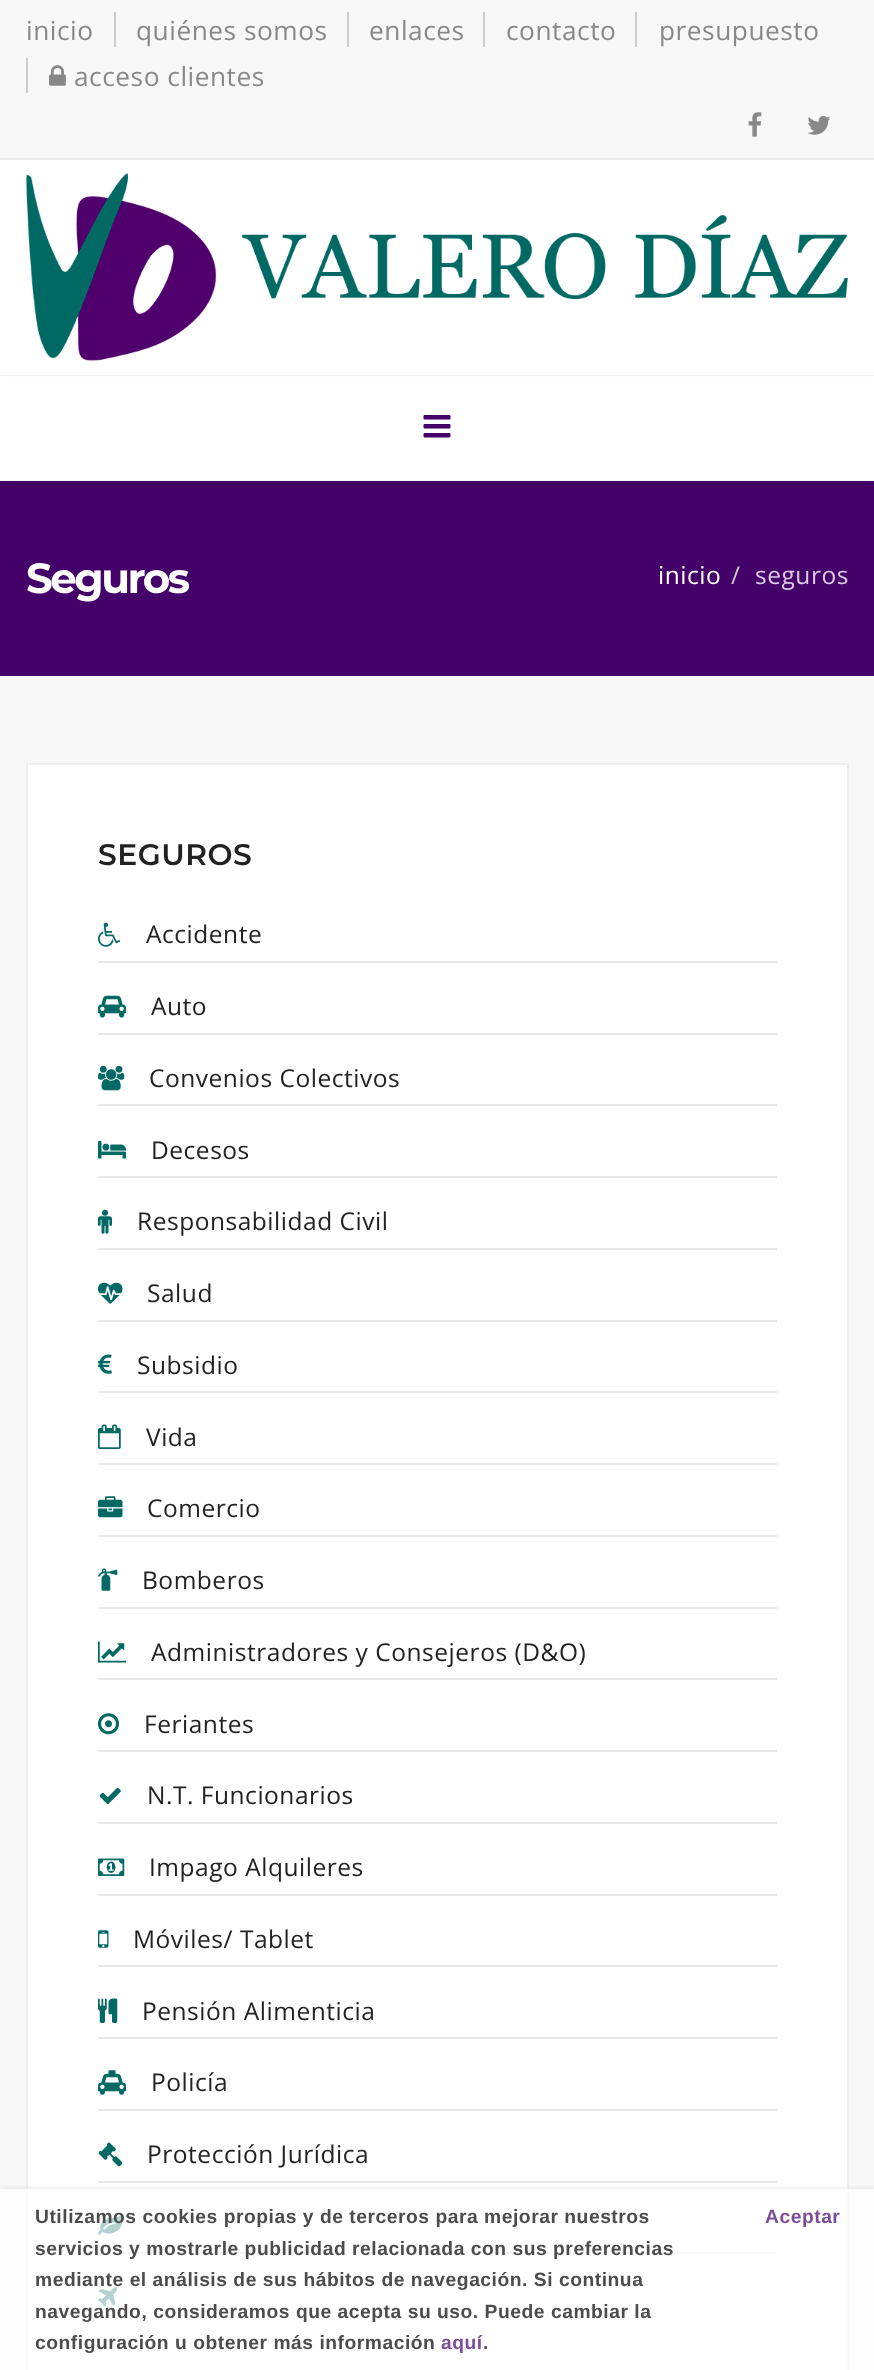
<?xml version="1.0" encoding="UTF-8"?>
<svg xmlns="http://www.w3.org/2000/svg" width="874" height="2370">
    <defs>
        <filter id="blur1" x="-50%" y="-200%" width="200%" height="500%"><feGaussianBlur stdDeviation="2.5"/></filter>
        <clipPath id="clip1"><path d="M 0 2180 H 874 V 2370 H 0 Z M 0 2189 H 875 V 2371 H 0 Z" clip-rule="evenodd"/></clipPath>
    </defs>
    <rect width="100%" height="100%" fill="#FFFFFF"/>
    <rect x="0" y="0" width="874" height="158" fill="#F8F8F8"/>
    <rect x="0" y="158" width="874" height="2" fill="#EBEBEB"/>
    <text x="26" y="40" font-family="Open Sans" font-size="26.25" letter-spacing="0.53" fill="#888888">inicio</text>
    <rect x="114" y="12" width="2" height="35" fill="#CCCCCC"/>
    <text x="136" y="40" font-family="Open Sans" font-size="26.25" letter-spacing="0.53" fill="#888888">quiénes somos</text>
    <rect x="347" y="12" width="2" height="35" fill="#CCCCCC"/>
    <text x="369" y="40" font-family="Open Sans" font-size="26.25" letter-spacing="0.53" fill="#888888">enlaces</text>
    <rect x="483" y="12" width="2" height="35" fill="#CCCCCC"/>
    <text x="506" y="40" font-family="Open Sans" font-size="26.25" letter-spacing="0.53" fill="#888888">contacto</text>
    <rect x="635" y="12" width="2" height="35" fill="#CCCCCC"/>
    <text x="659" y="40" font-family="Open Sans" font-size="26.25" letter-spacing="0.53" fill="#888888">presupuesto</text>
    <rect x="26" y="58" width="2" height="35" fill="#CCCCCC"/>
    <image x="49" y="65" width="17" height="21" href="img_01.png"/>
    <text x="74" y="86" font-family="Open Sans" font-size="26.25" letter-spacing="0.53" fill="#888888">acceso clientes</text>
    <image x="748" y="112" width="14" height="25" href="img_02.png"/>
    <image x="807" y="116" width="24" height="19" href="img_03.png"/>
    <rect x="0" y="375" width="874" height="1" fill="#EEEEEE"/>
    <image x="26" y="173" width="822" height="188" href="img_04.png"/>
    <rect x="0" y="481" width="874" height="195" fill="#45016A"/>
    <rect x="0" y="382" width="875" height="105" fill="#000000" fill-opacity="0.05" filter="url(#blur1)"/>
    <rect x="0" y="380" width="874" height="101" fill="#FFFFFF"/>
    <image x="423" y="415" width="28" height="23" href="img_05.png"/>
    <text x="26" y="593" font-family="Montserrat" font-size="42" font-weight="700" letter-spacing="-2.5" fill="#FFFFFF">Seguros</text>
    <text x="658" y="584" font-family="Open Sans" font-size="24.5" letter-spacing="0.53" fill="#FFFFFF">inicio</text>
    <text x="731" y="584" font-family="Open Sans" font-size="24.5" letter-spacing="0.53" fill="#CCCCCC">/</text>
    <text x="755" y="584" font-family="Open Sans" font-size="24.5" letter-spacing="0.53" fill="#DACCE1">seguros</text>
    <rect x="0" y="676" width="874" height="1694" fill="#F8F8F8"/>
    <rect x="27" y="764" width="821" height="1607" fill="#FFFFFF" stroke="#EEEEEE" stroke-width="2"/>
    <text x="98" y="865" font-family="Montserrat" font-size="29.75" font-weight="600" letter-spacing="0.53" fill="#222222">SEGUROS</text>
    <rect x="98" y="961" width="679" height="2" fill="#E8E8E8"/>
    <image x="98" y="922" width="23" height="25" href="img_06.png"/>
    <text x="146" y="943" font-family="Open Sans" font-size="24.5" letter-spacing="0.53" fill="#222222">Accidente</text>
    <rect x="98" y="1033" width="679" height="2" fill="#E8E8E8"/>
    <image x="98" y="995" width="28" height="23" href="img_07.png"/>
    <text x="151" y="1015" font-family="Open Sans" font-size="24.5" letter-spacing="0.53" fill="#222222">Auto</text>
    <rect x="98" y="1104" width="679" height="2" fill="#E8E8E8"/>
    <image x="98" y="1065" width="27" height="26" href="img_08.png"/>
    <text x="149" y="1087" font-family="Open Sans" font-size="24.5" letter-spacing="0.53" fill="#222222">Convenios Colectivos</text>
    <rect x="98" y="1176" width="679" height="2" fill="#E8E8E8"/>
    <image x="98" y="1141" width="28" height="18" href="img_09.png"/>
    <text x="151" y="1159" font-family="Open Sans" font-size="24.5" letter-spacing="0.53" fill="#222222">Decesos</text>
    <rect x="98" y="1248" width="679" height="2" fill="#E8E8E8"/>
    <image x="98" y="1209" width="14" height="25" href="img_10.png"/>
    <text x="137" y="1230" font-family="Open Sans" font-size="24.5" letter-spacing="0.53" fill="#222222">Responsabilidad Civil</text>
    <rect x="98" y="1320" width="679" height="2" fill="#E8E8E8"/>
    <image x="98" y="1282" width="25" height="22" href="img_11.png"/>
    <text x="147" y="1302" font-family="Open Sans" font-size="24.5" letter-spacing="0.53" fill="#222222">Salud</text>
    <rect x="98" y="1391" width="679" height="2" fill="#E8E8E8"/>
    <image x="98" y="1354" width="14" height="20" href="img_12.png"/>
    <text x="137" y="1374" font-family="Open Sans" font-size="24.5" letter-spacing="0.53" fill="#222222">Subsidio</text>
    <rect x="98" y="1463" width="679" height="2" fill="#E8E8E8"/>
    <image x="98" y="1424" width="23" height="25" href="img_13.png"/>
    <text x="146" y="1446" font-family="Open Sans" font-size="24.5" letter-spacing="0.53" fill="#222222">Vida</text>
    <rect x="98" y="1535" width="679" height="2" fill="#E8E8E8"/>
    <image x="98" y="1496" width="25" height="22" href="img_14.png"/>
    <text x="147" y="1517" font-family="Open Sans" font-size="24.5" letter-spacing="0.53" fill="#222222">Comercio</text>
    <rect x="98" y="1607" width="679" height="2" fill="#E8E8E8"/>
    <image x="98" y="1568" width="20" height="23" href="img_15.png"/>
    <text x="142" y="1589" font-family="Open Sans" font-size="24.5" letter-spacing="0.53" fill="#222222">Bomberos</text>
    <rect x="98" y="1678" width="679" height="2" fill="#E8E8E8"/>
    <image x="98" y="1641" width="28" height="22" href="img_16.png"/>
    <text x="151" y="1661" font-family="Open Sans" font-size="24.5" letter-spacing="0.53" fill="#222222">Administradores y Consejeros (D&amp;O)</text>
    <rect x="98" y="1750" width="679" height="2" fill="#E8E8E8"/>
    <image x="98" y="1713" width="21" height="22" href="img_17.png"/>
    <text x="144" y="1733" font-family="Open Sans" font-size="24.5" letter-spacing="0.53" fill="#222222">Feriantes</text>
    <rect x="98" y="1822" width="679" height="2" fill="#E8E8E8"/>
    <image x="99" y="1787" width="22" height="17" href="img_18.png"/>
    <text x="147" y="1804" font-family="Open Sans" font-size="24.5" letter-spacing="0.53" fill="#222222">N.T. Funcionarios</text>
    <rect x="98" y="1894" width="679" height="2" fill="#E8E8E8"/>
    <image x="98" y="1858" width="27" height="18" href="img_19.png"/>
    <text x="149" y="1876" font-family="Open Sans" font-size="24.5" letter-spacing="0.53" fill="#222222">Impago Alquileres</text>
    <rect x="98" y="1965" width="679" height="2" fill="#E8E8E8"/>
    <image x="98" y="1930" width="11" height="18" href="img_20.png"/>
    <text x="133" y="1948" font-family="Open Sans" font-size="24.5" letter-spacing="0.53" fill="#222222">Móviles/ Tablet</text>
    <rect x="98" y="2037" width="679" height="2" fill="#E8E8E8"/>
    <image x="98" y="1998" width="20" height="25" href="img_21.png"/>
    <text x="142" y="2020" font-family="Open Sans" font-size="24.5" letter-spacing="0.53" fill="#222222">Pensión Alimenticia</text>
    <rect x="98" y="2109" width="679" height="2" fill="#E8E8E8"/>
    <image x="98" y="2070" width="28" height="25" href="img_22.png"/>
    <text x="151" y="2091" font-family="Open Sans" font-size="24.5" letter-spacing="0.53" fill="#222222">Policía</text>
    <rect x="98" y="2181" width="679" height="2" fill="#E8E8E8"/>
    <image x="98" y="2142" width="25" height="25" href="img_23.png"/>
    <text x="147" y="2163" font-family="Open Sans" font-size="24.5" letter-spacing="0.53" fill="#222222">Protección Jurídica</text>
    <rect x="98" y="2252" width="679" height="2" fill="#E8E8E8"/>
    <image x="98" y="2215" width="25" height="20" href="img_24.png"/>
    <image x="98" y="2287" width="20" height="20" href="img_25.png"/>
    <g clip-path="url(#clip1)">
        <rect x="0" y="2189" width="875" height="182" fill="#CCCCCC" fill-opacity="0.7" filter="url(#blur1)"/>
    </g>
    <rect x="0" y="2189" width="874" height="181" fill="#FFFFFF" fill-opacity="0.7"/>
    <text font-family="Liberation Sans" font-size="19.25" font-weight="700" letter-spacing="0.53" fill="#4C4C4C">
        <tspan x="35" y="2223">Utilizamos cookies propias y de terceros para mejorar nuestros</tspan>
        <tspan x="35" y="2255">servicios y mostrarle publicidad relacionada con sus preferencias</tspan>
        <tspan x="35" y="2286">mediante el análisis de sus hábitos de navegación. Si continua</tspan>
        <tspan x="35" y="2318">navegando, consideramos que acepta su uso. Puede cambiar la</tspan>
        <tspan x="35" y="2349">configuración u obtener más información</tspan>
    </text>
    <text x="441" y="2349" font-family="Liberation Sans" font-size="19.25" font-weight="700" letter-spacing="0.53" fill="#7D4D97">aquí</text>
    <text x="483" y="2349" font-family="Liberation Sans" font-size="19.25" font-weight="700" letter-spacing="0.53" fill="#4C4C4C">.</text>
    <text x="765" y="2223" font-family="Liberation Sans" font-size="19.25" font-weight="700" letter-spacing="0.53" fill="#7D4D97">Aceptar</text>
</svg>
